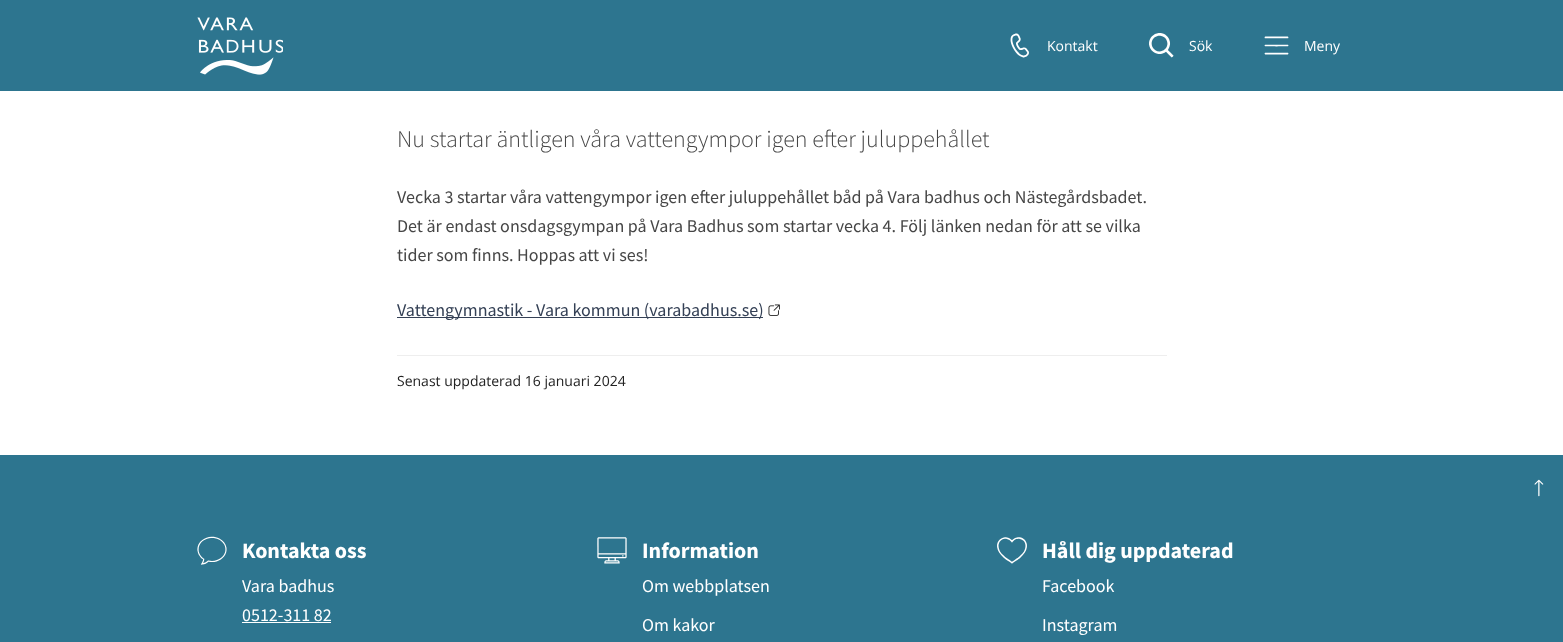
<?xml version="1.0" encoding="UTF-8"?>
<svg xmlns="http://www.w3.org/2000/svg" width="1563" height="642">
    <rect width="100%" height="100%" fill="#FFFFFF"/>
    <rect x="0" y="0" width="1563" height="91" fill="#2D758F"/>
    <image x="197" y="17" width="86" height="58" href="img_01.png"/>
    <image x="1010" y="33" width="19" height="25" href="img_02.png"/>
    <text x="1047" y="51" font-family="Open Sans" font-size="14" fill="#FFFFFF">Kontakt</text>
    <image x="1149" y="33" width="25" height="25" href="img_03.png"/>
    <text x="1189" y="51" font-family="Open Sans" font-size="14" fill="#FFFFFF">Sök</text>
    <image x="1264" y="36" width="25" height="19" href="img_04.png"/>
    <text x="1304" y="51" font-family="Open Sans" font-size="14" fill="#FFFFFF">Meny</text>
    <text x="397" y="147" font-family="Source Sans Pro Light" font-size="24" font-weight="300" fill="#464646">Nu startar äntligen våra vattengympor igen efter juluppehållet</text>
    <text font-family="Source Sans Pro" font-size="18" fill="#464646">
        <tspan x="397" y="203">Vecka 3 startar våra vattengympor igen efter juluppehållet båd på Vara badhus och Nästegårdsbadet.</tspan>
        <tspan x="397" y="232">Det är endast onsdagsgympan på Vara Badhus som startar vecka 4. Följ länken nedan för att se vilka</tspan>
        <tspan x="397" y="261">tider som finns. Hoppas att vi ses!</tspan>
    </text>
    <rect x="397" y="317" width="366" height="1" fill="#344055"/>
    <text x="397" y="316" font-family="Source Sans Pro" font-size="18" fill="#344055">Vattengymnastik - Vara kommun (varabadhus.se)</text>
    <image x="768" y="304" width="12" height="12" href="img_05.png"/>
    <rect x="397" y="355" width="770" height="1" fill="#EEEEEE"/>
    <text x="397" y="386" font-family="Open Sans" font-size="14" fill="#222222">Senast uppdaterad 16 januari 2024</text>
    <rect x="0" y="455" width="1563" height="187" fill="#2D758F"/>
    <image x="1534" y="479" width="10" height="18" href="img_06.png"/>
    <image x="197" y="536" width="30" height="29" href="img_07.png"/>
    <text x="242" y="558" font-family="Source Sans Pro" font-size="22" font-weight="700" fill="#FFFFFF">Kontakta oss</text>
    <text font-family="Source Sans Pro" font-size="18" fill="#FFFFFF">
        <tspan x="242" y="592">Vara badhus</tspan>
        <tspan x="242" y="621">0512-311 82</tspan>
    </text>
    <rect x="242" y="622" width="89" height="1" fill="#FFFFFF"/>
    <image x="597" y="537" width="30" height="27" href="img_08.png"/>
    <text x="642" y="558" font-family="Source Sans Pro" font-size="22" font-weight="700" fill="#FFFFFF">Information</text>
    <text x="642" y="592" font-family="Source Sans Pro" font-size="18" fill="#FFFFFF">Om webbplatsen</text>
    <text x="642" y="631" font-family="Source Sans Pro" font-size="18" fill="#FFFFFF">Om kakor</text>
    <image x="997" y="537" width="30" height="27" href="img_09.png"/>
    <text x="1042" y="558" font-family="Source Sans Pro" font-size="22" font-weight="700" fill="#FFFFFF">Håll dig uppdaterad</text>
    <text x="1042" y="592" font-family="Source Sans Pro" font-size="18" fill="#FFFFFF">Facebook</text>
    <text x="1042" y="631" font-family="Source Sans Pro" font-size="18" fill="#FFFFFF">Instagram</text>
</svg>
